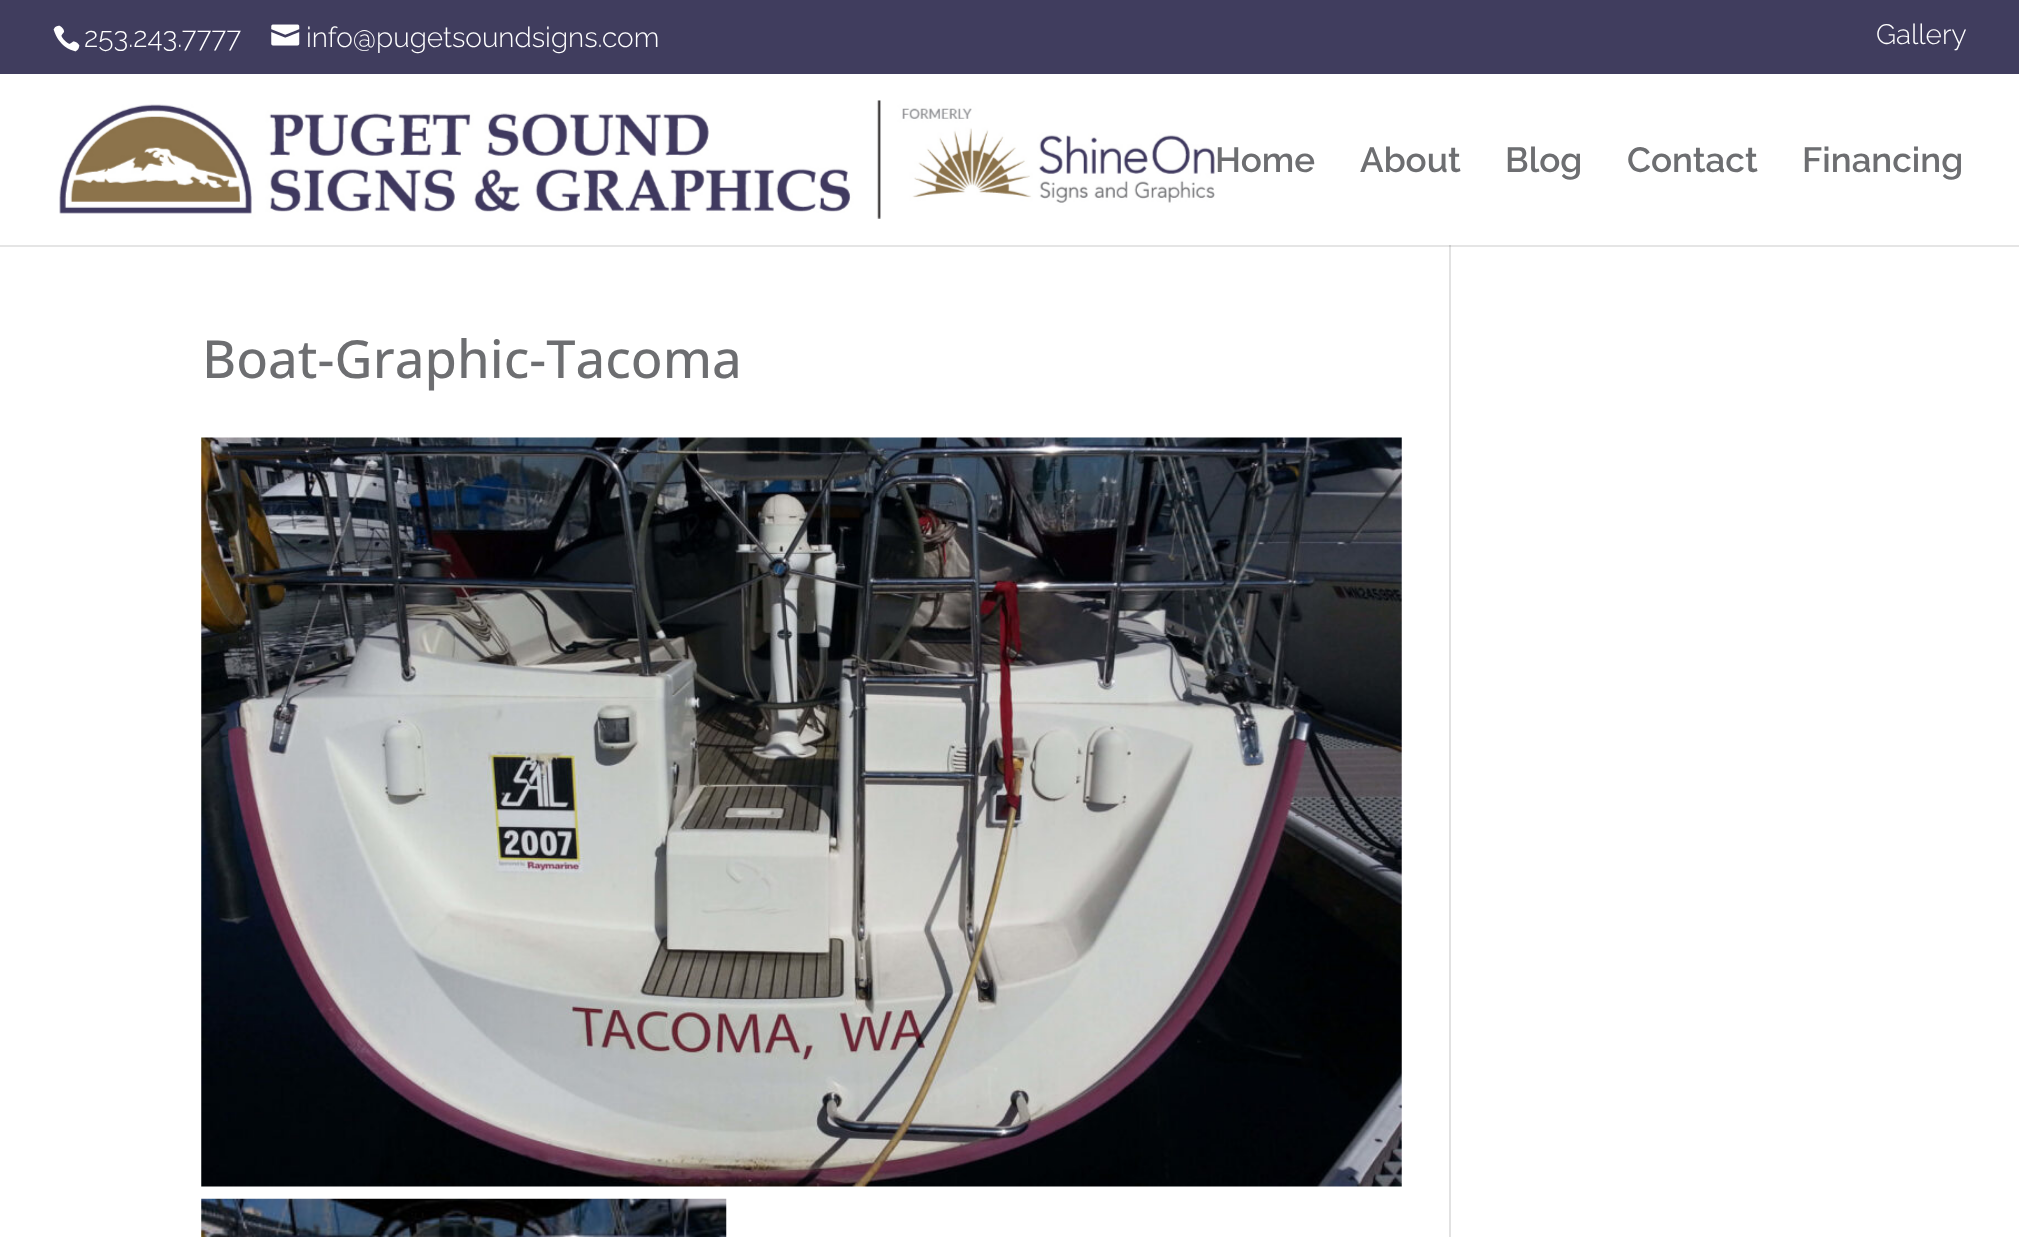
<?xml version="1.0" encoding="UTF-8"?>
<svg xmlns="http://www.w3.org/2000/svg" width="2019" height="1237">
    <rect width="100%" height="100%" fill="#FFFFFF"/>
    <rect x="0" y="0" width="2019" height="74" fill="#403D5E"/>
    <image x="53" y="25" width="27" height="27" href="img_01.png"/>
    <text x="84" y="47" font-family="Raleway" font-size="28" font-weight="300" fill="#FFFFFF">253.243.7777</text>
    <image x="271" y="24" width="29" height="22" href="img_02.png"/>
    <text x="306" y="47" font-family="Raleway" font-size="28" font-weight="300" fill="#FFFFFF">info@pugetsoundsigns.com</text>
    <text x="1876" y="44" font-family="Raleway" font-size="28" font-weight="300" fill="#FFFFFF">Gallery</text>
    <rect x="1449" y="245" width="2" height="992" fill="#E2E2E2"/>
    <path d="M 0 245 V 247 H 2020 V 75 V 245 Z" fill="#000000" fill-opacity="0.1"/>
    <image x="59" y="100" width="1156" height="119" href="img_03.png"/>
    <text x="1215" y="172" font-family="Raleway" font-size="35" font-weight="600" fill="#6D6E71">Home</text>
    <text x="1360" y="172" font-family="Raleway" font-size="35" font-weight="600" fill="#6D6E71">About</text>
    <text x="1505" y="172" font-family="Raleway" font-size="35" font-weight="600" fill="#6D6E71">Blog</text>
    <text x="1627" y="172" font-family="Raleway" font-size="35" font-weight="600" fill="#6D6E71">Contact</text>
    <text x="1802" y="172" font-family="Raleway" font-size="35" font-weight="600" fill="#6D6E71">Financing</text>
    <text x="202" y="378" font-family="Open Sans" font-size="52.5" font-weight="500" fill="#6D6E71">Boat-Graphic-Tacoma</text>
    <image x="201" y="437" width="1201" height="750" href="img_04.png"/>
    <image x="201" y="1198" width="526" height="39" href="img_05.png"/>
</svg>
